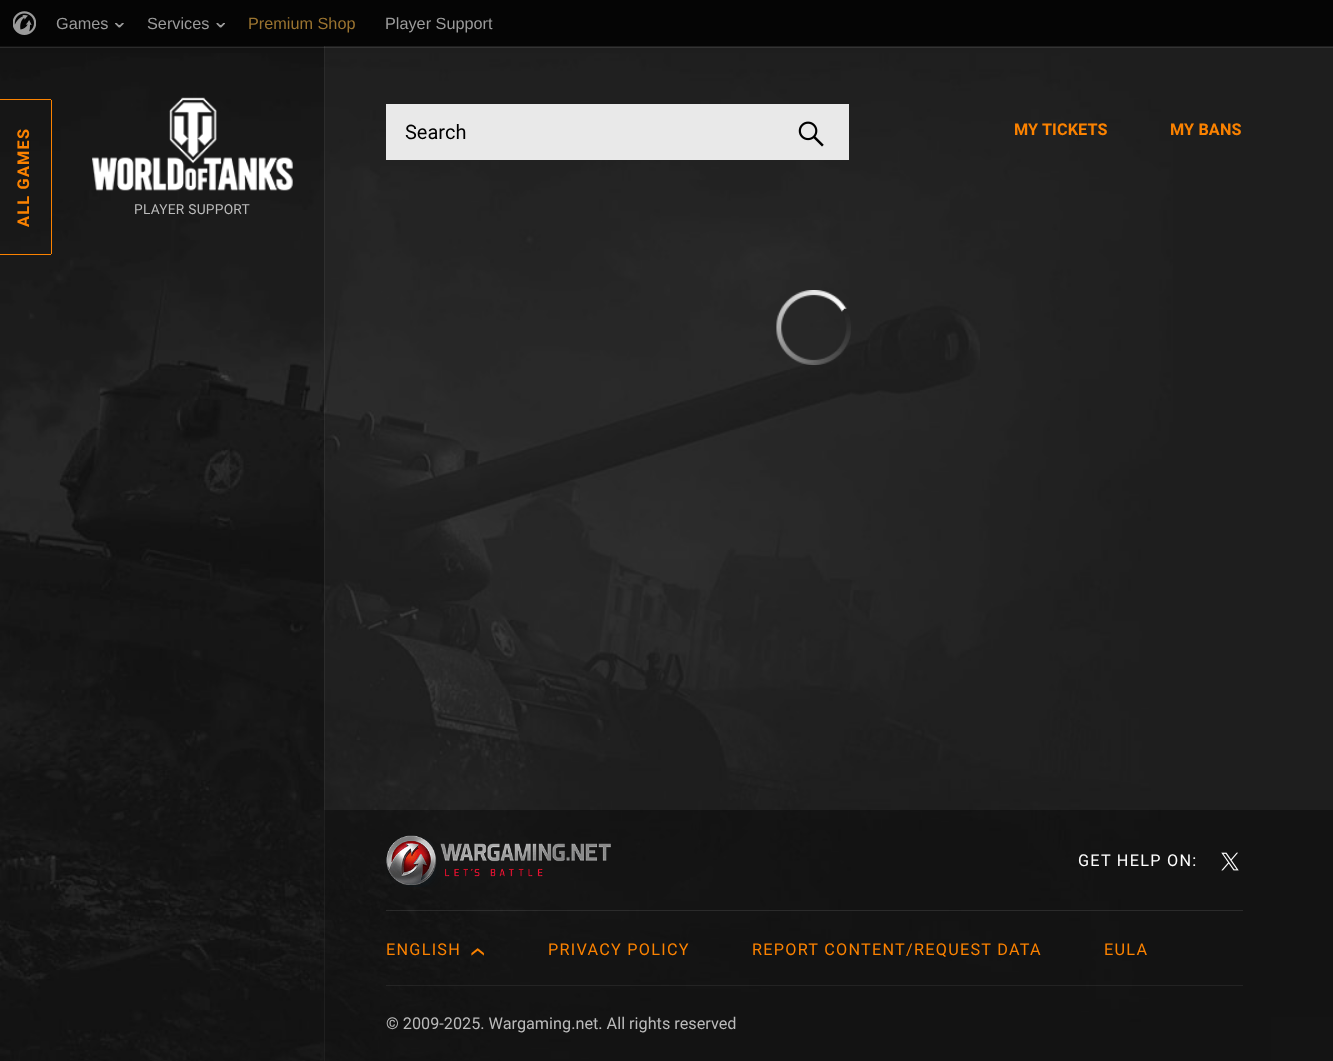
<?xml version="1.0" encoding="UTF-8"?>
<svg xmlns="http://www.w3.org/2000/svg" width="1333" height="1061">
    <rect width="100%" height="100%" fill="#181818"/>
    <image x="0" y="53" width="1173" height="1008" href="img_01.png"/>
    <rect x="0" y="0" width="1333" height="46" fill="#050505"/>
    <rect x="0" y="46" width="324" height="1015" fill="#000000" fill-opacity="0.2"/>
    <rect x="324" y="46" width="1009" height="1015" fill="#242424" fill-opacity="0.5"/>
    <rect x="324" y="810" width="1009" height="251" fill="#000000" fill-opacity="0.35"/>
    <rect x="324" y="46" width="1" height="1015" fill="#FFFFFF" fill-opacity="0.05"/>
    <rect x="-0.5" y="-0.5" width="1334" height="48" fill="none" stroke="#FFFFFF" stroke-opacity="0.1"/>
    <image x="13" y="11" width="23" height="24" href="img_02.png"/>
    <text x="56" y="29" font-family="Liberation Sans" font-size="16.25" fill="#9B9B9B">Games</text>
    <image x="115" y="23" width="9" height="5" href="img_03.png"/>
    <text x="147" y="29" font-family="Liberation Sans" font-size="16.25" fill="#9B9B9B">Services</text>
    <image x="216" y="23" width="9" height="5" href="img_04.png"/>
    <text x="248" y="29" font-family="Liberation Sans" font-size="16.25" fill="#9B7430">Premium Shop</text>
    <text x="385" y="29" font-family="Liberation Sans" font-size="16.25" fill="#9B9B9B">Player Support</text>
    <rect x="0" y="99" width="51" height="1" fill="#FB8200"/>
    <rect x="51" y="100" width="1" height="154" fill="#FB8200"/>
    <rect x="0" y="254" width="51" height="1" fill="#FB8200"/>
    <text x="29" y="227" transform="rotate(-90 29 227)" font-family="Roboto" font-size="16.25" font-weight="700" letter-spacing="1.25" fill="#FB8200">ALL GAMES</text>
    <image x="92" y="97" width="201" height="94" href="img_05.png"/>
    <text x="134" y="214" font-family="Roboto" font-size="13.75" letter-spacing="0.25" fill="#BBBBBB">PLAYER SUPPORT</text>
    <rect x="386" y="104" width="463" height="56" fill="#FFFFFF" fill-opacity="0.9"/>
    <text x="405" y="139" font-family="Roboto" font-size="20" fill="#000000">Search</text>
    <image x="798" y="121" width="26" height="26" href="img_06.png"/>
    <text x="1014" y="135" font-family="Roboto" font-size="16.25" font-weight="700" letter-spacing="0.1" fill="#FB8200">MY TICKETS</text>
    <text x="1170" y="135" font-family="Roboto" font-size="16.25" font-weight="700" letter-spacing="0.1" fill="#FB8200">MY BANS</text>
    <image x="776" y="290" width="75" height="75" href="img_07.png"/>
    <image x="386" y="835" width="225" height="52" href="img_08.png"/>
    <text x="1078" y="866" font-family="Roboto" font-size="16.25" letter-spacing="1.25" fill="#FFFFFF">GET HELP ON:</text>
    <image x="1221" y="852" width="18" height="19" href="img_09.png"/>
    <rect x="386" y="910" width="857" height="1" fill="#FFFFFF" fill-opacity="0.1"/>
    <text x="386" y="955" font-family="Roboto" font-size="16.25" letter-spacing="1.25" fill="#FB8200">ENGLISH</text>
    <image x="471" y="948" width="13" height="8" href="img_10.png"/>
    <text x="548" y="955" font-family="Roboto" font-size="16.25" letter-spacing="1.25" fill="#FB8200">PRIVACY POLICY</text>
    <text x="752" y="955" font-family="Roboto" font-size="16.25" letter-spacing="1.25" fill="#FB8200">REPORT CONTENT/REQUEST DATA</text>
    <text x="1104" y="955" font-family="Roboto" font-size="16.25" letter-spacing="1.25" fill="#FB8200">EULA</text>
    <rect x="386" y="985" width="857" height="1" fill="#FFFFFF" fill-opacity="0.07"/>
    <text x="386" y="1029" font-family="Roboto" font-size="16.25" fill="#BBBBBB">© 2009-2025. Wargaming.net. All rights reserved</text>
</svg>
